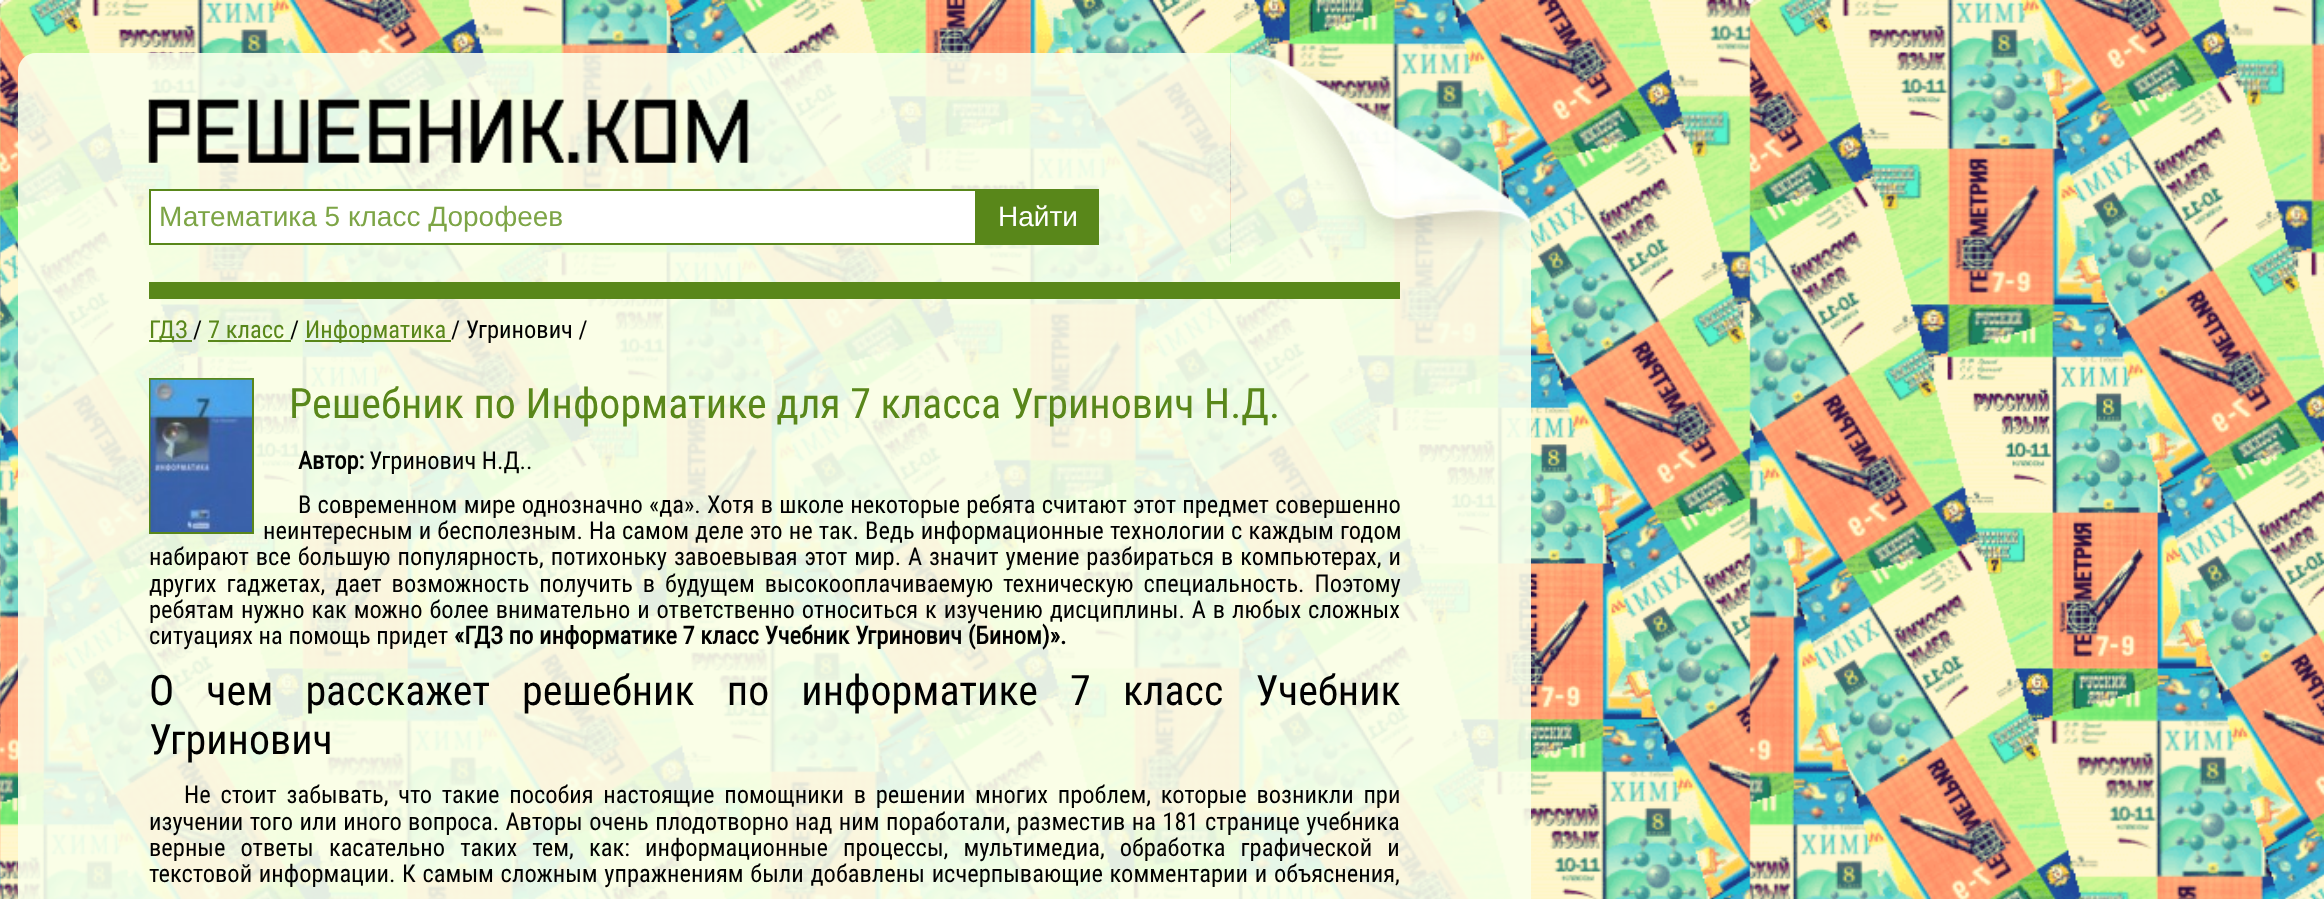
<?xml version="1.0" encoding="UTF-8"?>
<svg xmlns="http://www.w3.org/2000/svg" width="2324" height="899">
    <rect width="100%" height="100%" fill="#FFFFFF"/>
    <image x="0" y="0" width="2324" height="899" href="img_01.png"/>
    <path d="M 36 53 H 1230 V 264 H 18 V 71 C 18 61 26 53 36 53 Z" fill="#F9FFEA" fill-opacity="0.9"/>
    <image x="148" y="98" width="601" height="65" href="img_02.png"/>
    <rect x="150" y="190" width="826" height="54" fill="#FFFFFF" stroke="#59871A" stroke-width="2"/>
    <text x="159" y="226" font-family="Liberation Sans" font-size="28" fill="#7DA546">Математика 5 класс Дорофеев</text>
    <rect x="977" y="189" width="122" height="56" fill="#59871A"/>
    <text x="998" y="226" font-family="Liberation Sans" font-size="28" fill="#FFFFFF">Найти</text>
    <image x="1230" y="52" width="302" height="212" href="img_03.png"/>
    <rect x="18" y="264" width="1513" height="635" fill="#F9FFEA" fill-opacity="0.9"/>
    <rect x="149" y="282" width="1251" height="17" fill="#59871A"/>
    <rect x="149" y="340" width="43" height="2" fill="#59871A"/>
    <text x="149" y="338" font-family="Roboto Condensed" font-size="24.5" fill="#59871A">ГДЗ</text>
    <text x="193" y="338" font-family="Roboto Condensed" font-size="24.5" fill="#000000">/</text>
    <text x="208" y="338" font-family="Roboto Condensed" font-size="24.5" fill="#59871A">7 класс</text>
    <rect x="208" y="340" width="83" height="2" fill="#59871A"/>
    <text x="290" y="338" font-family="Roboto Condensed" font-size="24.5" fill="#000000">/</text>
    <rect x="305" y="340" width="146" height="2" fill="#59871A"/>
    <text x="305" y="338" font-family="Roboto Condensed" font-size="24.5" fill="#59871A">Информатика</text>
    <text x="451" y="338" font-family="Roboto Condensed" font-size="24.5" fill="#000000">/ Угринович /</text>
    <rect x="150" y="379" width="103" height="154" fill="none" stroke="#59871A" stroke-width="2"/>
    <image x="150" y="379" width="102" height="153" href="img_04.png"/>
    <text x="289" y="418" font-family="Roboto Condensed" font-size="42" fill="#59871A">Решебник по Информатике для 7 класса Угринович Н.Д.</text>
    <text x="298" y="469" font-family="Roboto Condensed" font-size="24.5" font-weight="700" fill="#000000">Автор:</text>
    <text x="369" y="469" font-family="Roboto Condensed" font-size="24.5" fill="#000000">Угринович Н.Д..</text>
    <text x="298" y="513" word-spacing="0.6" font-family="Roboto Condensed" font-size="24.5" fill="#000000">В современном мире однозначно «да». Хотя в школе некоторые ребята считают этот предмет совершенно</text>
    <text x="263" y="539" word-spacing="0.5" font-family="Roboto Condensed" font-size="24.5" fill="#000000">неинтересным и бесполезным. На самом деле это не так. Ведь информационные технологии с каждым годом</text>
    <text font-family="Roboto Condensed" font-size="24.5" fill="#000000">
        <tspan x="149" y="565" word-spacing="1.25">набирают все большую популярность, потихоньку завоевывая этот мир. А значит умение разбираться в компьютерах, и</tspan>
        <tspan x="149" y="592" word-spacing="4.25">других гаджетах, дает возможность получить в будущем высокооплачиваемую техническую специальность. Поэтому</tspan>
        <tspan x="149" y="618" word-spacing="1.3">ребятам нужно как можно более внимательно и ответственно относиться к изучению дисциплины. А в любых сложных</tspan>
        <tspan x="149" y="644">ситуациях на помощь придет</tspan>
    </text>
    <text x="454" y="644" font-family="Roboto Condensed" font-size="24.5" font-weight="700" fill="#000000">«ГДЗ по информатике 7 класс Учебник Угринович (Бином)».</text>
    <text font-family="Roboto Condensed" font-size="42" fill="#000000">
        <tspan x="149" y="705" word-spacing="22.5">О чем расскажет решебник по информатике 7 класс Учебник</tspan>
        <tspan x="149" y="754">Угринович</tspan>
    </text>
    <text x="184" y="803" word-spacing="4.1" font-family="Roboto Condensed" font-size="24.5" fill="#000000">Не стоит забывать, что такие пособия настоящие помощники в решении многих проблем, которые возникли при</text>
    <text font-family="Roboto Condensed" font-size="24.5" fill="#000000">
        <tspan x="149" y="830" word-spacing="0.8">изучении того или иного вопроса. Авторы очень плодотворно над ним поработали, разместив на 181 странице учебника</tspan>
        <tspan x="149" y="856" word-spacing="9.5">верные ответы касательно таких тем, как:</tspan>
    </text>
    <text x="645" y="856" word-spacing="9.5" font-family="Roboto Condensed" font-size="24.5" fill="#000000">информационные процессы, мультимедиа, обработка графической и</text>
    <text x="149" y="882" word-spacing="1.1" font-family="Roboto Condensed" font-size="24.5" fill="#000000">текстовой информации. К самым сложным упражнениям были добавлены исчерпывающие комментарии и объяснения,</text>
</svg>
